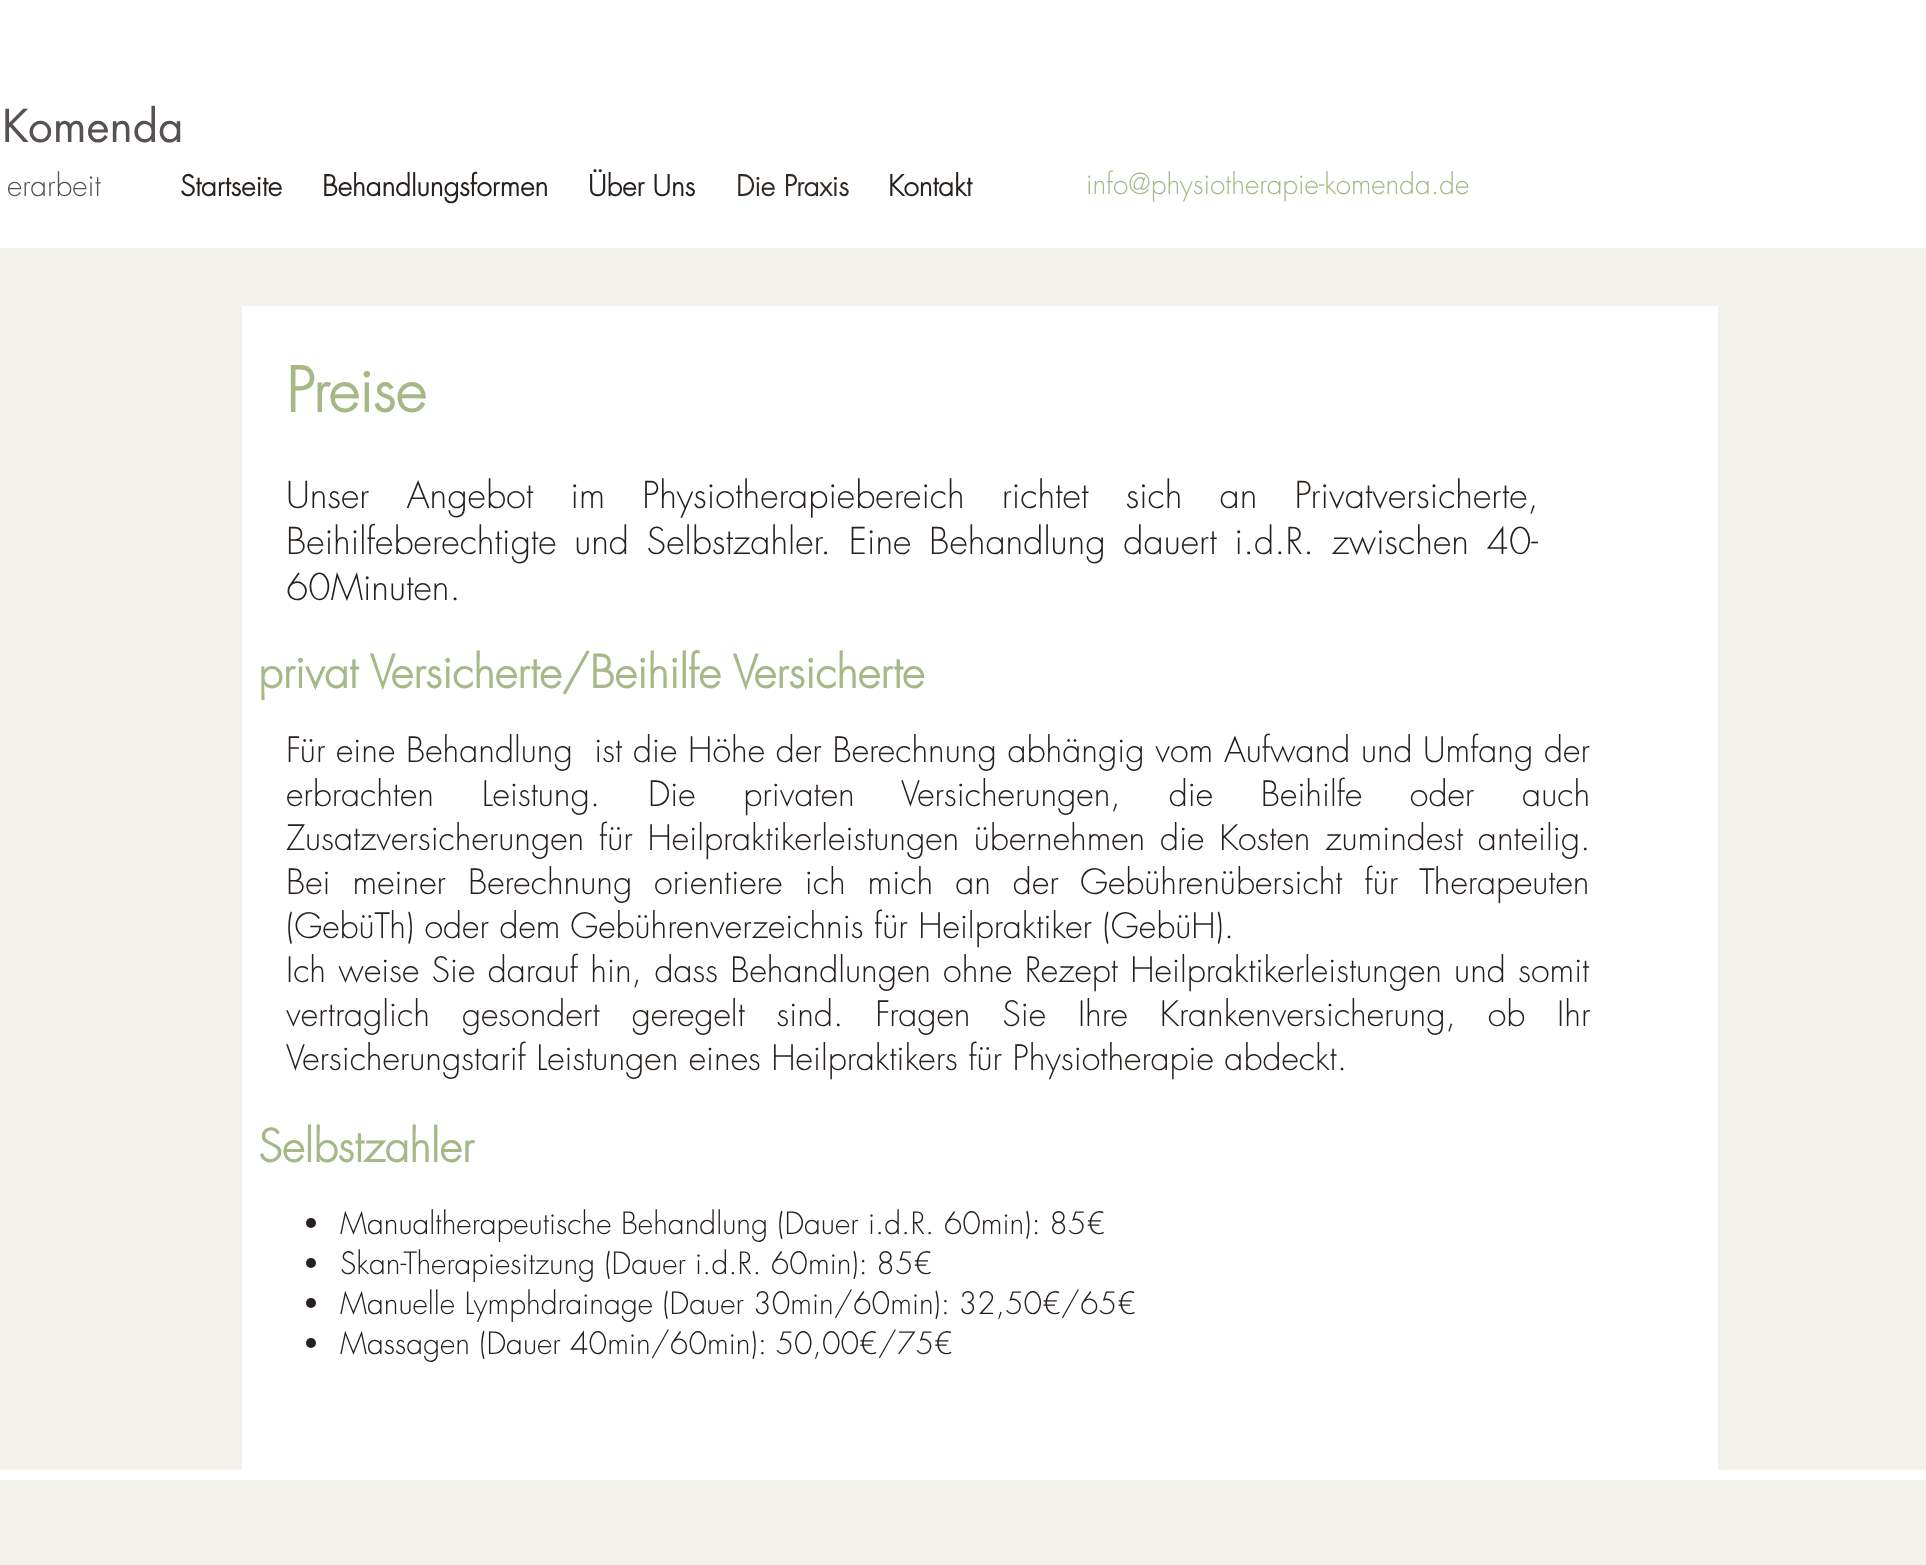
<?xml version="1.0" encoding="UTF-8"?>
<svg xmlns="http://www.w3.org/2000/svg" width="1926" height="1565">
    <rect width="100%" height="100%" fill="#F3F1EB"/>
    <rect x="0" y="0" width="1926" height="248" fill="#FFFFFF"/>
    <text x="2" y="142" font-family="futura" font-size="44" fill="#575151">Komenda</text>
    <text x="7" y="196" font-family="futura" font-size="30" font-weight="300" fill="#575151">erarbeit</text>
    <text x="180" y="196" font-family="futura" font-size="28" font-weight="700" fill="#27211E">Startseite</text>
    <text x="322" y="196" font-family="futura" font-size="28" font-weight="700" fill="#27211E">Behandlungsformen</text>
    <text x="588" y="196" font-family="futura" font-size="28" font-weight="700" fill="#27211E">Über Uns</text>
    <text x="736" y="196" font-family="futura" font-size="28" font-weight="700" fill="#312824">Die Praxis</text>
    <text x="888" y="196" font-family="futura" font-size="28" font-weight="700" fill="#27211E">Kontakt</text>
    <text x="1086" y="194" font-family="futura" font-size="28" font-weight="300" fill="#A5B886">info@physiotherapie-komenda.de</text>
    <rect x="242" y="306" width="1476" height="1164" fill="#FFFFFF"/>
    <text x="286" y="412" font-family="futura" font-size="60" font-weight="700" fill="#A5B886">Preise</text>
    <text font-family="futura" font-size="36" font-weight="300" fill="#27211E">
        <tspan x="286" y="508" word-spacing="26">Unser Angebot im Physiotherapiebereich richtet sich an Privatversicherte,</tspan>
        <tspan x="286" y="554" word-spacing="6.5">Beihilfeberechtigte und Selbstzahler. Eine Behandlung dauert i.d.R. zwischen 40-</tspan>
        <tspan x="286" y="600">60Minuten.</tspan>
    </text>
    <text x="258" y="688" font-family="futura" font-size="44" font-weight="700" fill="#A5B886">privat Versicherte/Beihilfe Versicherte</text>
    <text font-family="futura" font-size="34" font-weight="300" fill="#27211E" xml:space="preserve"><tspan x="286" y="762" word-spacing="0.25">Für eine Behandlung  ist die Höhe der Berechnung abhängig vom Aufwand und Umfang der</tspan><tspan x="286" y="806" word-spacing="37.25">erbrachten Leistung. Die privaten Versicherungen, die Beihilfe oder auch</tspan><tspan x="286" y="850" word-spacing="4.25">Zusatzversicherungen für Heilpraktikerleistungen übernehmen die Kosten zumindest anteilig.</tspan><tspan x="286" y="894" word-spacing="11.5">Bei meiner Berechnung orientiere ich mich an der Gebührenübersicht für Therapeuten</tspan><tspan x="286" y="938">(GebüTh) oder dem Gebührenverzeichnis für Heilpraktiker (GebüH).</tspan><tspan x="286" y="982" word-spacing="1.75">Ich weise Sie darauf hin, dass Behandlungen ohne Rezept Heilpraktikerleistungen und somit</tspan><tspan x="286" y="1026" word-spacing="21.25">vertraglich gesondert geregelt sind. Fragen Sie Ihre Krankenversicherung, ob Ihr</tspan><tspan x="286" y="1070">Versicherungstarif Leistungen eines Heilpraktikers für Physiotherapie abdeckt.</tspan></text>
    <text x="258" y="1162" font-family="futura" font-size="44" font-weight="700" fill="#A5B886">Selbstzahler</text>
    <circle cx="311" cy="1223" r="5" fill="#27211E"/>
    <text x="340" y="1234" font-family="futura" font-size="30" font-weight="300" fill="#27211E">Manualtherapeutische Behandlung (Dauer i.d.R. 60min): 85€</text>
    <circle cx="311" cy="1263" r="5" fill="#27211E"/>
    <text x="340" y="1274" font-family="futura" font-size="30" font-weight="300" fill="#27211E">Skan-Therapiesitzung (Dauer i.d.R. 60min): 85€</text>
    <circle cx="311" cy="1303" r="5" fill="#27211E"/>
    <text x="340" y="1314" font-family="futura" font-size="30" font-weight="300" fill="#27211E">Manuelle Lymphdrainage (Dauer 30min/60min): 32,50€/65€</text>
    <circle cx="311" cy="1343" r="5" fill="#27211E"/>
    <text x="340" y="1354" font-family="futura" font-size="30" font-weight="300" fill="#27211E">Massagen (Dauer 40min/60min): 50,00€/75€</text>
    <rect x="0" y="1470" width="1926" height="10" fill="#FFFFFF"/>
</svg>
